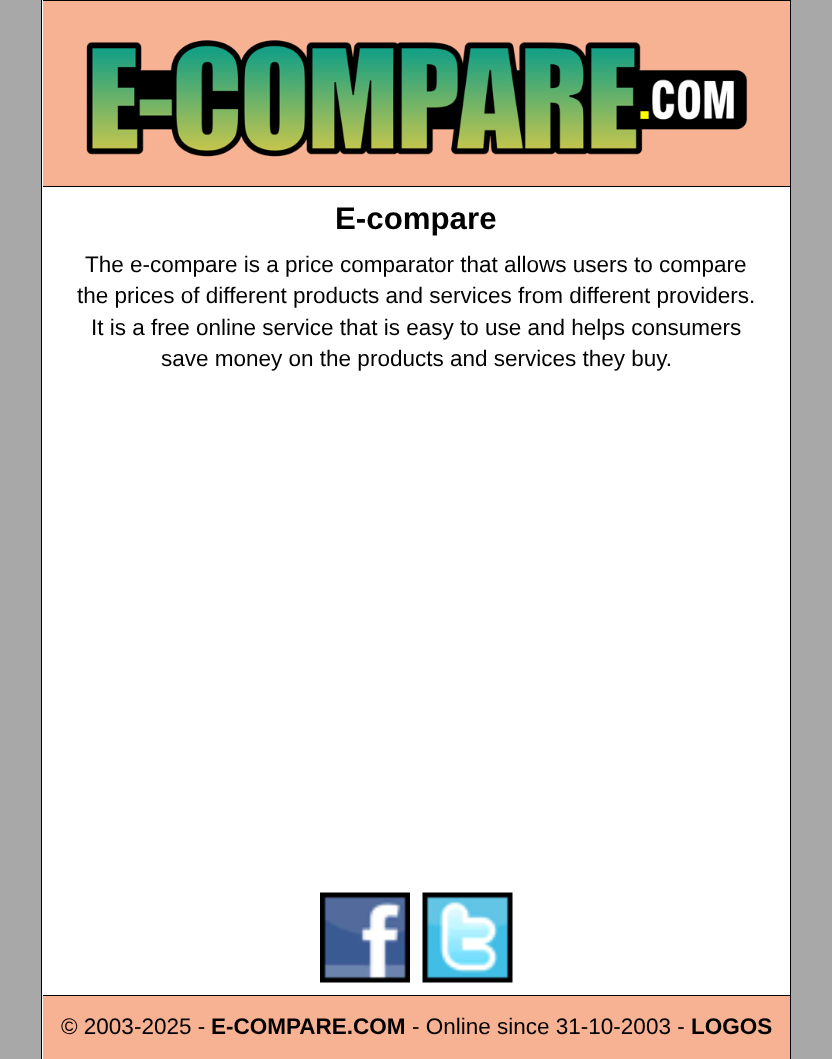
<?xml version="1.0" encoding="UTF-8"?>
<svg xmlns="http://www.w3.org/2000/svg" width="832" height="1059">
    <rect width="100%" height="100%" fill="#A8A8A8"/>
    <rect x="42" y="0" width="748" height="1059" fill="#FFFFFF"/>
    <rect x="41" y="0" width="1" height="1059" fill="#000000"/>
    <rect x="43" y="0" width="747" height="1" fill="#000000"/>
    <rect x="43" y="1" width="747" height="185" fill="#F7B293"/>
    <image x="86" y="39" width="662" height="118" href="img_01.png"/>
    <rect x="43" y="186" width="747" height="1" fill="#000000"/>
    <text x="335" y="229" font-family="Liberation Sans" font-size="31.25" font-weight="700" fill="#000000">E-compare</text>
    <text x="85" y="272" font-family="Liberation Sans" font-size="22.5" fill="#000000">The e-compare is a price comparator that allows users to compare</text>
    <text x="77" y="303" font-family="Liberation Sans" font-size="22.5" fill="#000000">the prices of different products and services from different providers.</text>
    <text x="91" y="335" font-family="Liberation Sans" font-size="22.5" fill="#000000">It is a free online service that is easy to use and helps consumers</text>
    <text x="161" y="366" font-family="Liberation Sans" font-size="22.5" fill="#000000">save money on the products and services they buy.</text>
    <image x="320" y="892" width="90" height="91" href="img_02.png"/>
    <image x="422" y="892" width="91" height="91" href="img_03.png"/>
    <rect x="43" y="995" width="747" height="1" fill="#000000"/>
    <rect x="43" y="996" width="747" height="63" fill="#F7B293"/>
    <text x="61" y="1034" font-family="Liberation Sans" font-size="22.5" fill="#000000">© 2003-2025 -</text>
    <text x="211" y="1034" font-family="Liberation Sans" font-size="22.5" font-weight="700" fill="#000000">E-COMPARE.COM</text>
    <text x="412" y="1034" font-family="Liberation Sans" font-size="22.5" fill="#000000">- Online since 31-10-2003 -</text>
    <text x="691" y="1034" font-family="Liberation Sans" font-size="22.5" font-weight="700" fill="#000000">LOGOS</text>
    <rect x="790" y="0" width="1" height="1059" fill="#000000"/>
</svg>
